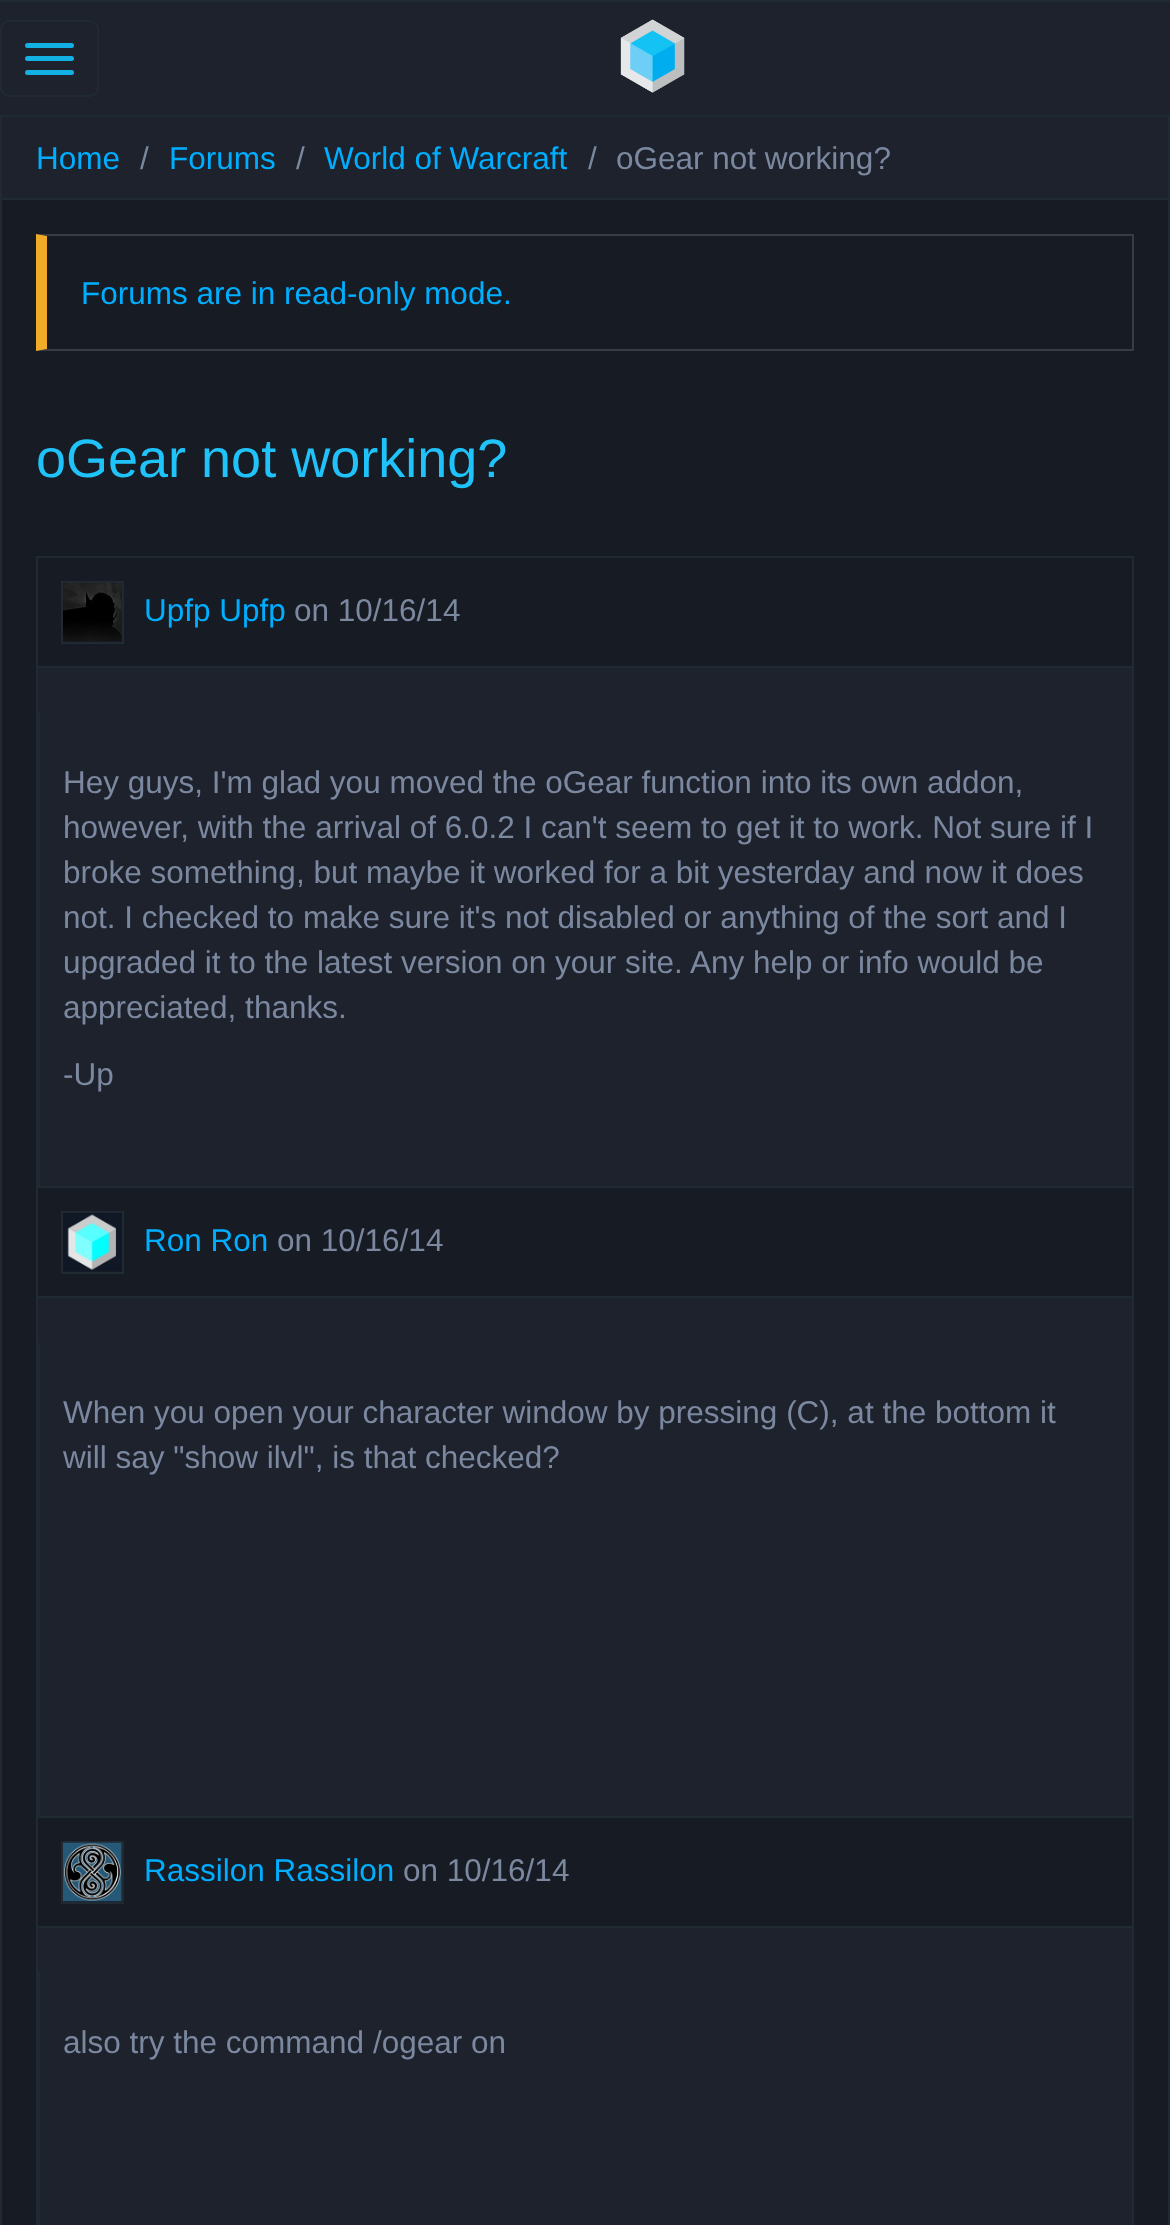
<?xml version="1.0" encoding="UTF-8"?>
<svg xmlns="http://www.w3.org/2000/svg" width="1170" height="2225">
    <rect width="100%" height="100%" fill="#171B23"/>
    <rect x="0" y="2" width="1170" height="113" fill="#1D222C"/>
    <rect x="0" y="0" width="1170" height="2" fill="#202A33"/>
    <rect x="0" y="115" width="1170" height="2" fill="#202A33"/>
    <rect x="1" y="21" width="97" height="75" rx="8" fill="none" stroke="#202A33" stroke-width="2"/>
    <rect x="25" y="43" width="49" height="5" rx="2.5" fill="#12B0E5"/>
    <rect x="25" y="56" width="49" height="5" rx="2.5" fill="#12B0E5"/>
    <rect x="25" y="70" width="49" height="5" rx="2.5" fill="#12B0E5"/>
    <image x="620" y="19" width="65" height="74" href="img_01.png"/>
    <rect x="1168" y="117" width="2" height="2108" fill="#202A33"/>
    <rect x="0" y="117" width="2" height="2108" fill="#202A33"/>
    <rect x="2" y="117" width="1166" height="81" fill="#1D222C"/>
    <rect x="2" y="198" width="1166" height="2" fill="#202A33"/>
    <text x="36" y="169" font-family="Liberation Sans" font-size="31.5" fill="#00AEFF">Home</text>
    <text x="140" y="169" font-family="Liberation Sans" font-size="31.5" fill="#7B88A0">/</text>
    <text x="169" y="169" font-family="Liberation Sans" font-size="31.5" fill="#00AEFF">Forums</text>
    <text x="296" y="169" font-family="Liberation Sans" font-size="31.5" fill="#7B88A0">/</text>
    <text x="324" y="169" font-family="Liberation Sans" font-size="31.5" fill="#00AEFF">World of Warcraft</text>
    <text x="588" y="169" font-family="Liberation Sans" font-size="31.5" fill="#7B88A0">/</text>
    <text x="616" y="169" font-family="Liberation Sans" font-size="31.5" fill="#7B88A0">oGear not working?</text>
    <path d="M 36 234 H 1134 L 1132 236 H 47 Z" fill="#393C42"/>
    <path d="M 1134 234 V 351 L 1132 349 V 236 Z" fill="#FFFFFF" fill-opacity="0.15"/>
    <path d="M 1134 351 H 36 L 47 349 H 1132 Z" fill="#FFFFFF" fill-opacity="0.15"/>
    <path d="M 36 351 V 234 L 47 236 V 349 Z" fill="#F0AC28"/>
    <text x="81" y="304" font-family="Liberation Sans" font-size="31.5" fill="#00AEFF">Forums are in read-only mode.</text>
    <text x="36" y="477" font-family="Liberation Sans" font-size="54" fill="#20C3F9">oGear not working?</text>
    <rect x="38" y="668" width="1094" height="1557" fill="#1D222C"/>
    <rect x="37" y="557" width="1096" height="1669" fill="none" stroke="#202A33" stroke-width="2"/>
    <rect x="38" y="1186" width="1094" height="2" fill="#202A33"/>
    <rect x="38" y="666" width="1094" height="2" fill="#202A33"/>
    <rect x="62" y="582" width="61" height="61" fill="none" stroke="#202A33" stroke-width="2"/>
    <image x="63" y="582" width="59" height="60" href="img_02.png"/>
    <text x="144" y="621" font-family="Liberation Sans" font-size="31.5" fill="#00AEFF">Upfp Upfp</text>
    <text x="294" y="621" font-family="Liberation Sans" font-size="31.5" fill="#7B88A0">on 10/16/14</text>
    <rect x="38" y="713" width="2" height="473" fill="#202A33"/>
    <text font-family="Liberation Sans" font-size="31.5" fill="#7B88A0">
        <tspan x="63" y="793">Hey guys, I'm glad you moved the oGear function into its own addon,</tspan>
        <tspan x="63" y="838">however, with the arrival of 6.0.2 I can't seem to get it to work. Not sure if I</tspan>
        <tspan x="63" y="883">broke something, but maybe it worked for a bit yesterday and now it does</tspan>
        <tspan x="63" y="928">not. I checked to make sure it's not disabled or anything of the sort and I</tspan>
        <tspan x="63" y="973">upgraded it to the latest version on your site. Any help or info would be</tspan>
        <tspan x="63" y="1018">appreciated, thanks.</tspan>
    </text>
    <text x="63" y="1085" font-family="Liberation Sans" font-size="31.5" fill="#7B88A0">-Up</text>
    <rect x="38" y="1816" width="1094" height="2" fill="#202A33"/>
    <rect x="38" y="1188" width="1094" height="108" fill="#171B23"/>
    <rect x="38" y="1296" width="1094" height="2" fill="#202A33"/>
    <rect x="62" y="1212" width="61" height="61" fill="none" stroke="#202A33" stroke-width="2"/>
    <image x="63" y="1212" width="59" height="59" href="img_03.png"/>
    <text x="144" y="1251" font-family="Liberation Sans" font-size="31.5" fill="#00AEFF">Ron Ron</text>
    <text x="277" y="1251" font-family="Liberation Sans" font-size="31.5" fill="#7B88A0">on 10/16/14</text>
    <rect x="38" y="1343" width="2" height="473" fill="#202A33"/>
    <text font-family="Liberation Sans" font-size="31.5" fill="#7B88A0">
        <tspan x="63" y="1423">When you open your character window by pressing (C), at the bottom it</tspan>
        <tspan x="63" y="1468">will say "show ilvl", is that checked?</tspan>
    </text>
    <rect x="38" y="1818" width="1094" height="108" fill="#171B23"/>
    <rect x="38" y="1926" width="1094" height="2" fill="#202A33"/>
    <rect x="62" y="1842" width="61" height="61" fill="none" stroke="#202A33" stroke-width="2"/>
    <image x="63" y="1842" width="59" height="60" href="img_04.png"/>
    <text x="144" y="1881" font-family="Liberation Sans" font-size="31.5" fill="#00AEFF">Rassilon Rassilon</text>
    <text x="403" y="1881" font-family="Liberation Sans" font-size="31.5" fill="#7B88A0">on 10/16/14</text>
    <rect x="38" y="1973" width="2" height="252" fill="#202A33"/>
    <text x="63" y="2053" font-family="Liberation Sans" font-size="31.5" fill="#7B88A0">also try the command /ogear on</text>
</svg>
